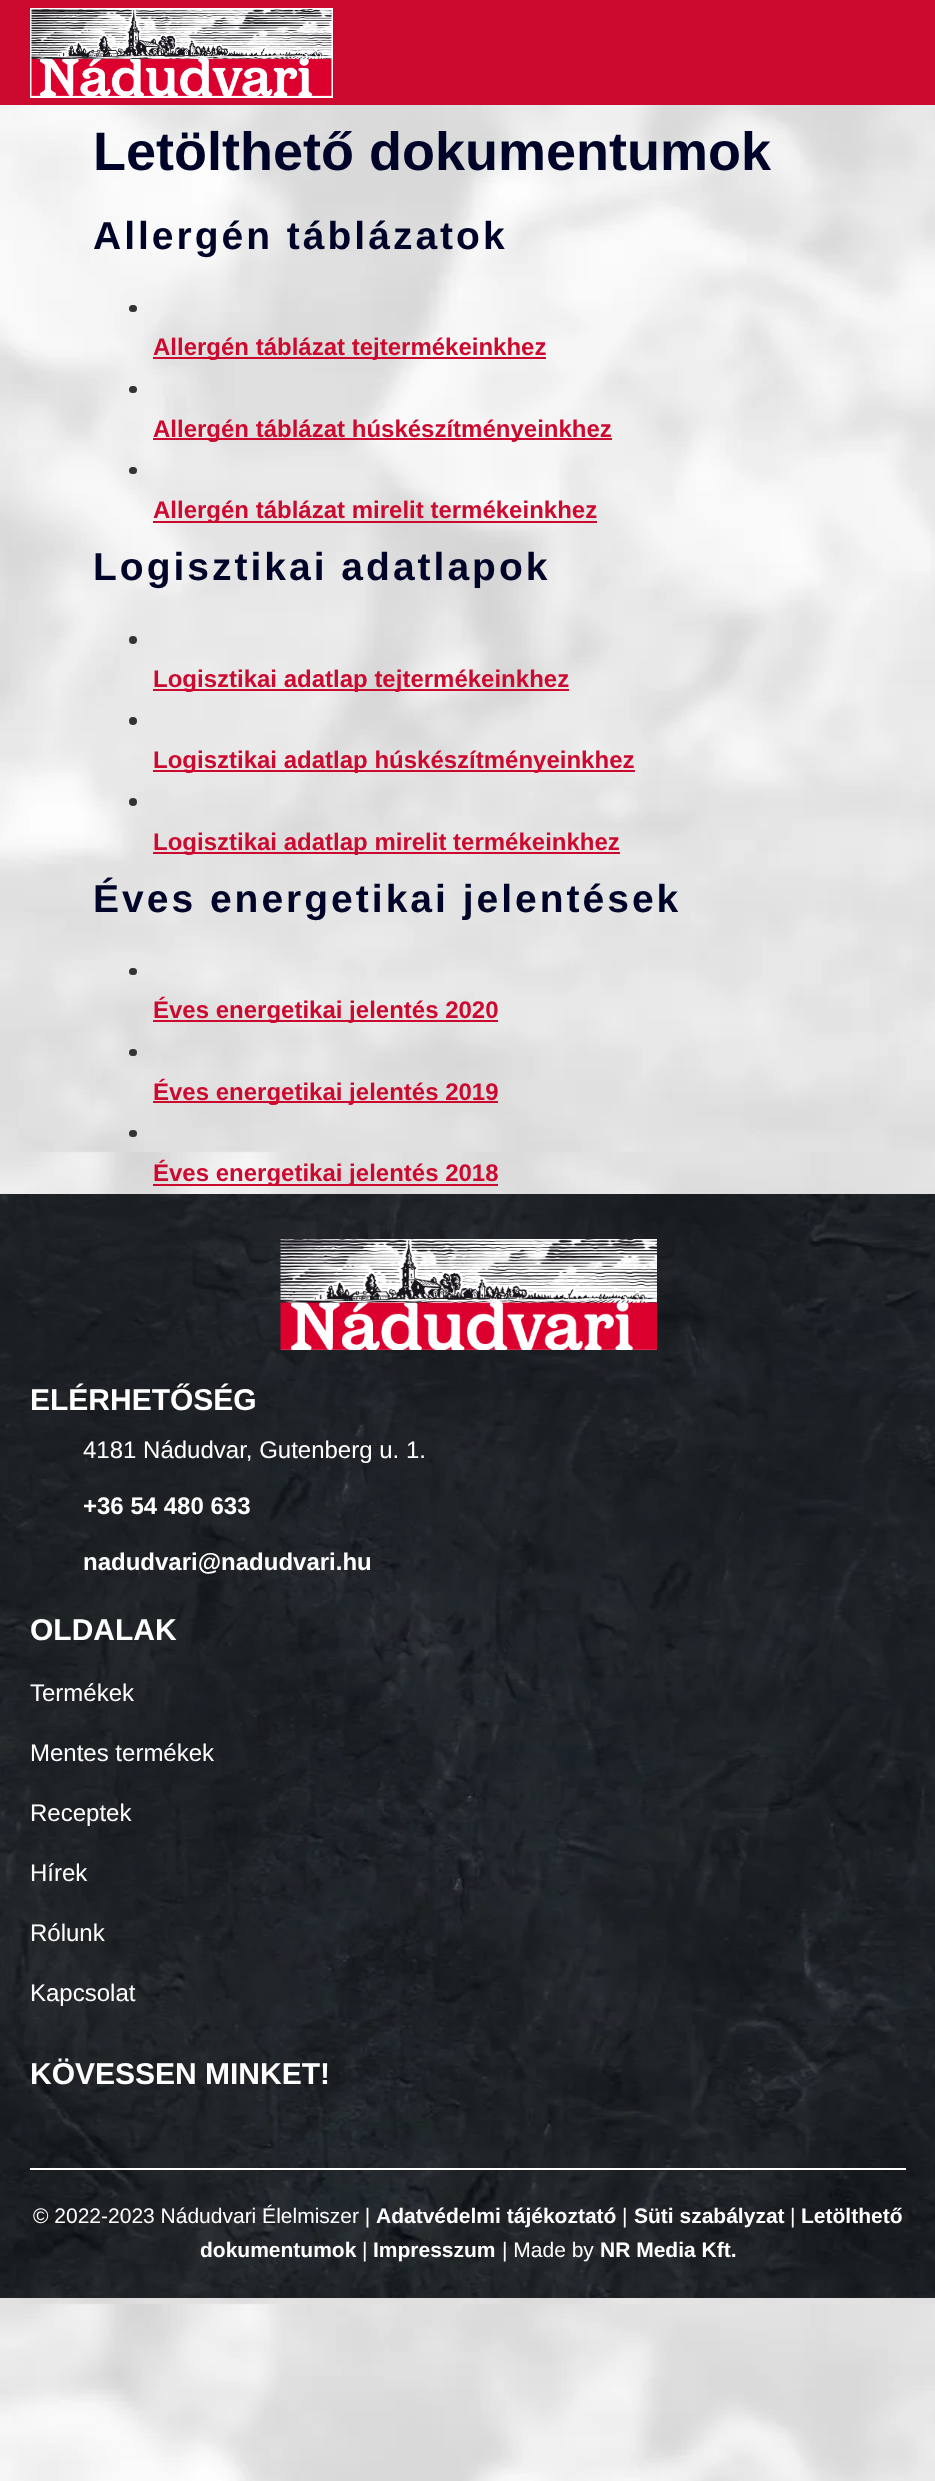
<?xml version="1.0" encoding="UTF-8"?>
<svg xmlns="http://www.w3.org/2000/svg" width="935" height="2481">
    <rect width="100%" height="100%" fill="#FFFFFF"/>
    <image x="0" y="105" width="935" height="2376" href="img_01.png"/>
    <rect x="0" y="0" width="935" height="105" fill="#CC092F"/>
    <rect x="31" y="9" width="301" height="88" fill="none" stroke="#FFFFFF" stroke-width="2"/>
    <image x="31" y="9" width="301" height="87" href="img_02.png"/>
    <text x="93" y="170" font-family="Liberation Sans" font-size="54" font-weight="700" fill="#000428">Letölthető dokumentumok</text>
    <text x="93" y="249" font-family="Liberation Sans" font-size="39" font-weight="700" letter-spacing="3" fill="#000428">Allergén táblázatok</text>
    <rect x="129" y="305" width="8" height="7" rx="3.5" fill="#333333"/>
    <rect x="153" y="357" width="393" height="2" fill="#CC092F"/>
    <text x="153" y="355" font-family="Liberation Sans" font-size="24" font-weight="700" fill="#CC092F">Allergén táblázat tejtermékeinkhez</text>
    <rect x="129" y="386" width="8" height="7" rx="3.5" fill="#333333"/>
    <rect x="153" y="438" width="459" height="2" fill="#CC092F"/>
    <text x="153" y="437" font-family="Liberation Sans" font-size="24" font-weight="700" fill="#CC092F">Allergén táblázat húskészítményeinkhez</text>
    <rect x="129" y="467" width="8" height="7" rx="3.5" fill="#333333"/>
    <rect x="153" y="521" width="444" height="2" fill="#CC092F"/>
    <text x="153" y="518" font-family="Liberation Sans" font-size="24" font-weight="700" fill="#CC092F">Allergén táblázat mirelit termékeinkhez</text>
    <text x="93" y="580" font-family="Liberation Sans" font-size="39" font-weight="700" letter-spacing="3" fill="#000428">Logisztikai adatlapok</text>
    <circle cx="133" cy="640" r="4" fill="#333333"/>
    <rect x="153" y="689" width="416" height="2" fill="#CC092F"/>
    <text x="153" y="687" font-family="Liberation Sans" font-size="24" font-weight="700" fill="#CC092F">Logisztikai adatlap tejtermékeinkhez</text>
    <circle cx="133" cy="721" r="4" fill="#333333"/>
    <rect x="153" y="770" width="482" height="2" fill="#CC092F"/>
    <text x="153" y="768" font-family="Liberation Sans" font-size="24" font-weight="700" fill="#CC092F">Logisztikai adatlap húskészítményeinkhez</text>
    <circle cx="133" cy="802" r="4" fill="#333333"/>
    <rect x="153" y="852" width="467" height="2" fill="#CC092F"/>
    <text x="153" y="850" font-family="Liberation Sans" font-size="24" font-weight="700" fill="#CC092F">Logisztikai adatlap mirelit termékeinkhez</text>
    <text x="93" y="912" font-family="Liberation Sans" font-size="39" font-weight="700" letter-spacing="3" fill="#000428">Éves energetikai jelentések</text>
    <rect x="129" y="968" width="8" height="7" rx="3.5" fill="#333333"/>
    <rect x="153" y="1020" width="345" height="2" fill="#CC092F"/>
    <text x="153" y="1018" font-family="Liberation Sans" font-size="24" font-weight="700" fill="#CC092F">Éves energetikai jelentés 2020</text>
    <rect x="129" y="1049" width="8" height="7" rx="3.5" fill="#333333"/>
    <rect x="153" y="1101" width="345" height="2" fill="#CC092F"/>
    <text x="153" y="1100" font-family="Liberation Sans" font-size="24" font-weight="700" fill="#CC092F">Éves energetikai jelentés 2019</text>
    <rect x="129" y="1130" width="8" height="7" rx="3.5" fill="#333333"/>
    <rect x="153" y="1184" width="345" height="2" fill="#CC092F"/>
    <text x="153" y="1181" font-family="Liberation Sans" font-size="24" font-weight="700" fill="#CC092F">Éves energetikai jelentés 2018</text>
    <image x="0" y="1194" width="935" height="1104" href="img_03.png"/>
    <image x="280" y="1239" width="377" height="111" href="img_04.png"/>
    <text x="30" y="1410" font-family="Liberation Sans" font-size="30" font-weight="700" fill="#FFFFFF">ELÉRHETŐSÉG</text>
    <text x="83" y="1458" font-family="Liberation Sans" font-size="24" fill="#FFFFFF">4181 Nádudvar, Gutenberg u. 1.</text>
    <text x="83" y="1514" font-family="Liberation Sans" font-size="24" font-weight="700" fill="#FFFFFF">+36 54 480 633</text>
    <text x="83" y="1570" font-family="Liberation Sans" font-size="24" font-weight="700" fill="#FFFFFF">nadudvari@nadudvari.hu</text>
    <text x="30" y="1640" font-family="Liberation Sans" font-size="30" font-weight="700" fill="#FFFFFF">OLDALAK</text>
    <text x="30" y="1701" font-family="Liberation Sans" font-size="24" fill="#FFFFFF">Termékek</text>
    <text x="30" y="1761" font-family="Liberation Sans" font-size="24" fill="#FFFFFF">Mentes termékek</text>
    <text x="30" y="1821" font-family="Liberation Sans" font-size="24" fill="#FFFFFF">Receptek</text>
    <text x="30" y="1881" font-family="Liberation Sans" font-size="24" fill="#FFFFFF">Hírek</text>
    <text x="30" y="1941" font-family="Liberation Sans" font-size="24" fill="#FFFFFF">Rólunk</text>
    <text x="30" y="2001" font-family="Liberation Sans" font-size="24" fill="#FFFFFF">Kapcsolat</text>
    <text x="30" y="2084" font-family="Liberation Sans" font-size="30" font-weight="700" fill="#FFFFFF">KÖVESSEN MINKET!</text>
    <rect x="30" y="2168" width="876" height="2" fill="#FFFFFF"/>
    <text x="33" y="2223" font-family="Liberation Sans" font-size="21" fill="#FFFFFF">© 2022-2023 Nádudvari Élelmiszer |</text>
    <text x="376" y="2223" font-family="Liberation Sans" font-size="21" font-weight="700" fill="#FFFFFF">Adatvédelmi tájékoztató</text>
    <text x="622" y="2223" font-family="Liberation Sans" font-size="21" fill="#FFFFFF">|</text>
    <text x="634" y="2223" font-family="Liberation Sans" font-size="21" font-weight="700" fill="#FFFFFF">Süti szabályzat</text>
    <text x="790" y="2223" font-family="Liberation Sans" font-size="21" fill="#FFFFFF">|</text>
    <text x="801" y="2223" font-family="Liberation Sans" font-size="21" font-weight="700" fill="#FFFFFF">Letölthető</text>
    <text x="200" y="2257" font-family="Liberation Sans" font-size="21" font-weight="700" fill="#FFFFFF">dokumentumok</text>
    <text x="362" y="2257" font-family="Liberation Sans" font-size="21" fill="#FFFFFF">|</text>
    <text x="373" y="2257" font-family="Liberation Sans" font-size="21" font-weight="700" fill="#FFFFFF">Impresszum</text>
    <text x="502" y="2257" font-family="Liberation Sans" font-size="21" fill="#FFFFFF">| Made by</text>
    <text x="600" y="2257" font-family="Liberation Sans" font-size="21" font-weight="700" fill="#FFFFFF">NR Media Kft.</text>
</svg>
